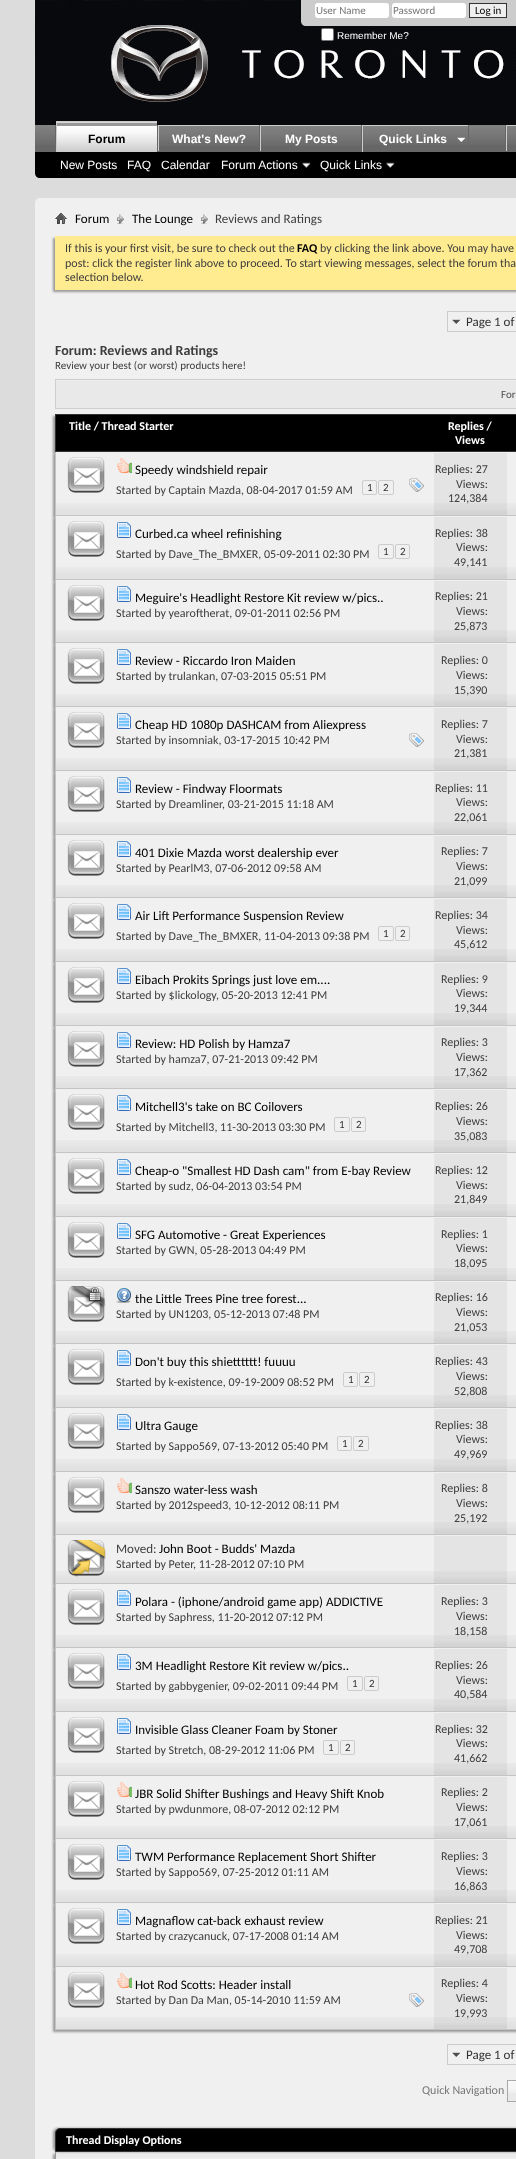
<?xml version="1.0" encoding="UTF-8"?>
<svg xmlns="http://www.w3.org/2000/svg" width="516" height="2159">
    <defs>
        <filter id="blur1" x="-50%" y="-200%" width="200%" height="500%"><feGaussianBlur stdDeviation="1"/></filter>
        <clipPath id="clip1"><rect x="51" y="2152" width="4" height="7"/></clipPath>
    </defs>
    <rect width="100%" height="100%" fill="#DCDCDC"/>
    <image x="35" y="0" width="481" height="125" href="img_01.png"/>
    <path d="M 301 0 H 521 V 21 C 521 24 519 26 516 26 H 306 C 303 26 301 24 301 21 Z" fill="#CCCCCC"/>
    <rect x="315" y="3" width="74" height="15" rx="3" fill="#FFFFFF"/>
    <text x="316" y="14" font-family="Carlito" font-size="11" fill="#777777">User Name</text>
    <rect x="392" y="3" width="74" height="15" rx="3" fill="#FFFFFF"/>
    <text x="393" y="14" font-family="Carlito" font-size="11" fill="#777777">Password</text>
    <rect x="469.5" y="3.5" width="37" height="14" fill="#EFEFEF" stroke="#333333"/>
    <text x="475" y="14" font-family="Carlito" font-size="11" fill="#000000">Log in</text>
    <rect x="321.5" y="28.5" width="12" height="12" rx="1.5" fill="#FFFFFF" stroke="#767676"/>
    <text x="337" y="39" font-family="Liberation Sans" font-size="10" fill="#FFFFFF">Remember Me?</text>
    <path d="M 35 125 H 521 V 173 C 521 176 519 178 516 178 H 40 C 37 178 35 176 35 173 Z" fill="#000000"/>
    <rect x="35" y="125" width="481" height="26" fill="#666666"/>
    <image x="35" y="125" width="481" height="20" href="img_02.png"/>
    <rect x="157" y="125" width="1" height="26" fill="#666666"/>
    <rect x="55" y="125" width="1" height="26" fill="#666666"/>
    <rect x="259" y="125" width="1" height="27" fill="#666666"/>
    <rect x="158" y="125" width="101" height="1" fill="#CCCCCC"/>
    <rect x="158" y="125" width="1" height="27" fill="#CCCCCC"/>
    <rect x="361" y="125" width="1" height="27" fill="#666666"/>
    <rect x="260" y="125" width="101" height="1" fill="#CCCCCC"/>
    <rect x="260" y="125" width="1" height="27" fill="#CCCCCC"/>
    <rect x="35" y="151" width="481" height="1" fill="#666666"/>
    <rect x="57" y="122" width="100" height="30" fill="#999999"/>
    <image x="57" y="122" width="100" height="30" href="img_03.png"/>
    <rect x="56" y="121" width="101" height="1" fill="#CCCCCC"/>
    <rect x="56" y="121" width="1" height="31" fill="#CCCCCC"/>
    <text x="88" y="143" font-family="Liberation Sans" font-size="12" font-weight="700" fill="#000000">Forum</text>
    <text x="60" y="169" font-family="Liberation Sans" font-size="12" fill="#FFFFFF">New Posts</text>
    <text x="127" y="169" font-family="Liberation Sans" font-size="12" fill="#FFFFFF">FAQ</text>
    <text x="161" y="169" font-family="Liberation Sans" font-size="12" fill="#FFFFFF">Calendar</text>
    <text x="221" y="169" font-family="Liberation Sans" font-size="12" fill="#FFFFFF">Forum Actions</text>
    <image x="302" y="162" width="9" height="6" href="img_04.png"/>
    <text x="320" y="169" font-family="Liberation Sans" font-size="12" fill="#FFFFFF">Quick Links</text>
    <image x="386" y="162" width="9" height="6" href="img_04.png"/>
    <rect x="159" y="126" width="100" height="19" fill="#666666"/>
    <image x="159" y="126" width="100" height="20" href="img_05.png"/>
    <text x="172" y="143" font-family="Liberation Sans" font-size="12" font-weight="700" fill="#FFFFFF">What's New?</text>
    <rect x="261" y="126" width="100" height="19" fill="#666666"/>
    <image x="261" y="126" width="100" height="20" href="img_05.png"/>
    <text x="285" y="143" font-family="Liberation Sans" font-size="12" font-weight="700" fill="#FFFFFF">My Posts</text>
    <rect x="468" y="125" width="1" height="27" fill="#666666"/>
    <image x="457" y="137" width="9" height="5" href="img_06.png"/>
    <rect x="362" y="125" width="106" height="1" fill="#CCCCCC"/>
    <rect x="362" y="125" width="1" height="27" fill="#CCCCCC"/>
    <text x="379" y="143" font-family="Liberation Sans" font-size="12" font-weight="700" fill="#FFFFFF">Quick Links</text>
    <rect x="505" y="125" width="1" height="26" fill="#666666"/>
    <rect x="506" y="125" width="10" height="1" fill="#CCCCCC"/>
    <rect x="506" y="125" width="1" height="26" fill="#CCCCCC"/>
    <rect x="35" y="198" width="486" height="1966" rx="5" fill="#F0F0F0"/>
    <image x="55" y="213" width="12" height="11" href="img_07.png"/>
    <image x="117" y="214" width="7" height="10" href="img_08.png"/>
    <text x="75" y="223" font-family="Carlito" font-size="13" fill="#000000">Forum</text>
    <image x="201" y="214" width="7" height="10" href="img_08.png"/>
    <text x="132" y="223" font-family="Carlito" font-size="13" fill="#000000">The Lounge</text>
    <text x="215" y="223" font-family="Carlito" font-size="13" fill="#3E3E3E">Reviews and Ratings</text>
    <rect x="53" y="238" width="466" height="54" fill="#999999" filter="url(#blur1)"/>
    <rect x="55" y="236" width="461" height="54" fill="#FFEB90"/>
    <text x="65" y="252" font-family="Carlito" font-size="12" fill="#3E3E3E">If this is your first visit, be sure to check out the</text>
    <text x="297" y="252" font-family="Carlito" font-size="12" font-weight="700" fill="#000000">FAQ</text>
    <text x="320" y="252" font-family="Carlito" font-size="12" fill="#3E3E3E">by clicking the link above. You may have</text>
    <text font-family="Carlito" font-size="12" fill="#3E3E3E">
        <tspan x="65" y="267">post: click the register link above to proceed. To start viewing messages, select the forum tha</tspan>
        <tspan x="65" y="281">selection below.</tspan>
    </text>
    <image x="452" y="319" width="9" height="6" href="img_09.png"/>
    <rect x="447.5" y="311.5" width="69" height="20" fill="none" stroke="#CCCCCC"/>
    <text x="466" y="326" font-family="Carlito" font-size="13" fill="#333333">Page 1 of</text>
    <text x="55" y="355" font-family="Carlito" font-size="14" font-weight="700" fill="#3E3E3E">Forum: Reviews and Ratings</text>
    <text x="55" y="369" font-family="Carlito" font-size="11" fill="#3E3E3E">Review your best (or worst) products here!</text>
    <rect x="56" y="381" width="460" height="27" fill="#E9E9E9"/>
    <rect x="55" y="380" width="461" height="1" fill="#EDEDED"/>
    <rect x="55.5" y="379.5" width="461" height="29" fill="none" stroke="#CECECE"/>
    <text x="501" y="398" font-family="Carlito" font-size="11" fill="#4E4E4E">For</text>
    <rect x="53" y="416" width="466" height="38" fill="#999999" filter="url(#blur1)"/>
    <rect x="55.5" y="414.5" width="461" height="37" fill="#000000" stroke="#333333"/>
    <text x="69" y="430" font-family="Carlito" font-size="12" font-weight="700" fill="#FFFFFF">Title / Thread Starter</text>
    <text x="448" y="430" font-family="Carlito" font-size="12" font-weight="700" fill="#FFFFFF">Replies /</text>
    <text x="455" y="444" font-family="Carlito" font-size="12" font-weight="700" fill="#FFFFFF">Views</text>
    <rect x="53" y="454" width="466" height="64" fill="#999999" filter="url(#blur1)"/>
    <rect x="56" y="452" width="460" height="63" fill="#F0F0F0"/>
    <image x="56" y="503" width="460" height="12" href="img_10.png"/>
    <rect x="55" y="515" width="461" height="1" fill="#C4C4C4"/>
    <rect x="55" y="452" width="1" height="64" fill="#C4C4C4"/>
    <image x="67" y="457" width="38" height="36" href="img_11.png"/>
    <image x="117" y="458" width="15" height="16" href="img_12.png"/>
    <text x="135" y="474" font-family="Carlito" font-size="13" fill="#000000">Speedy windshield repair</text>
    <text x="116" y="494" font-family="Carlito" font-size="12" fill="#3E3E3E">Started by Captain Mazda, 08-04-2017 01:59 AM</text>
    <rect x="362.5" y="480.5" width="14" height="14" rx="1.5" fill="none" stroke="#CCCCCC"/>
    <text x="367" y="491" font-family="Carlito" font-size="11" fill="#333333">1</text>
    <rect x="378.5" y="480.5" width="15" height="14" rx="1.5" fill="none" stroke="#CCCCCC"/>
    <text x="383" y="491" font-family="Carlito" font-size="11" fill="#333333">2</text>
    <image x="409" y="478" width="15" height="14" href="img_13.png"/>
    <rect x="434" y="453" width="73" height="54" fill="#E4E4E4"/>
    <image x="434" y="503" width="73" height="12" href="img_14.png"/>
    <text x="435" y="473" font-family="Carlito" font-size="12" fill="#3E3E3E">Replies: 27</text>
    <text x="456" y="488" font-family="Carlito" font-size="12" fill="#3E3E3E">Views:</text>
    <text x="448" y="502" font-family="Carlito" font-size="12" fill="#3E3E3E">124,384</text>
    <rect x="53" y="518" width="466" height="64" fill="#999999" filter="url(#blur1)"/>
    <rect x="56" y="516" width="460" height="63" fill="#F0F0F0"/>
    <image x="56" y="567" width="460" height="12" href="img_10.png"/>
    <rect x="55" y="579" width="461" height="1" fill="#C4C4C4"/>
    <rect x="55" y="516" width="1" height="64" fill="#C4C4C4"/>
    <image x="67" y="521" width="38" height="36" href="img_11.png"/>
    <image x="117" y="522" width="14" height="16" href="img_15.png"/>
    <text x="135" y="538" font-family="Carlito" font-size="13" fill="#000000">Curbed.ca wheel refinishing</text>
    <text x="116" y="558" font-family="Carlito" font-size="12" fill="#3E3E3E">Started by Dave_The_BMXER, 05-09-2011 02:30 PM</text>
    <rect x="378.5" y="544.5" width="15" height="14" rx="1.5" fill="none" stroke="#CCCCCC"/>
    <text x="383" y="555" font-family="Carlito" font-size="11" fill="#333333">1</text>
    <rect x="395.5" y="544.5" width="14" height="14" rx="1.5" fill="none" stroke="#CCCCCC"/>
    <text x="400" y="555" font-family="Carlito" font-size="11" fill="#333333">2</text>
    <rect x="434" y="517" width="73" height="54" fill="#E4E4E4"/>
    <image x="434" y="567" width="73" height="12" href="img_14.png"/>
    <text x="435" y="537" font-family="Carlito" font-size="12" fill="#3E3E3E">Replies: 38</text>
    <text x="456" y="551" font-family="Carlito" font-size="12" fill="#3E3E3E">Views:</text>
    <text x="454" y="566" font-family="Carlito" font-size="12" fill="#3E3E3E">49,141</text>
    <rect x="53" y="582" width="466" height="63" fill="#999999" filter="url(#blur1)"/>
    <rect x="56" y="580" width="460" height="62" fill="#F0F0F0"/>
    <image x="56" y="630" width="460" height="12" href="img_10.png"/>
    <rect x="55" y="642" width="461" height="1" fill="#C4C4C4"/>
    <rect x="55" y="580" width="1" height="63" fill="#C4C4C4"/>
    <image x="67" y="585" width="38" height="36" href="img_11.png"/>
    <image x="117" y="586" width="14" height="16" href="img_15.png"/>
    <text x="135" y="602" font-family="Carlito" font-size="13" fill="#000000">Meguire's Headlight Restore Kit review w/pics..</text>
    <text x="116" y="617" font-family="Carlito" font-size="12" fill="#3E3E3E">Started by yearoftherat, 09-01-2011 02:56 PM</text>
    <rect x="434" y="581" width="73" height="53" fill="#E4E4E4"/>
    <image x="434" y="630" width="73" height="12" href="img_14.png"/>
    <text x="435" y="600" font-family="Carlito" font-size="12" fill="#3E3E3E">Replies: 21</text>
    <text x="456" y="615" font-family="Carlito" font-size="12" fill="#3E3E3E">Views:</text>
    <text x="454" y="630" font-family="Carlito" font-size="12" fill="#3E3E3E">25,873</text>
    <rect x="53" y="645" width="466" height="64" fill="#999999" filter="url(#blur1)"/>
    <rect x="56" y="643" width="460" height="63" fill="#F0F0F0"/>
    <image x="56" y="694" width="460" height="12" href="img_10.png"/>
    <rect x="55" y="706" width="461" height="1" fill="#C4C4C4"/>
    <rect x="55" y="643" width="1" height="64" fill="#C4C4C4"/>
    <image x="67" y="648" width="38" height="36" href="img_11.png"/>
    <image x="117" y="649" width="14" height="16" href="img_15.png"/>
    <text x="135" y="665" font-family="Carlito" font-size="13" fill="#000000">Review - Riccardo Iron Maiden</text>
    <text x="116" y="680" font-family="Carlito" font-size="12" fill="#3E3E3E">Started by trulankan, 07-03-2015 05:51 PM</text>
    <rect x="434" y="644" width="73" height="54" fill="#E4E4E4"/>
    <image x="434" y="694" width="73" height="12" href="img_14.png"/>
    <text x="441" y="664" font-family="Carlito" font-size="12" fill="#3E3E3E">Replies: 0</text>
    <text x="456" y="679" font-family="Carlito" font-size="12" fill="#3E3E3E">Views:</text>
    <text x="454" y="694" font-family="Carlito" font-size="12" fill="#3E3E3E">15,390</text>
    <rect x="53" y="709" width="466" height="64" fill="#999999" filter="url(#blur1)"/>
    <rect x="56" y="707" width="460" height="63" fill="#F0F0F0"/>
    <image x="56" y="758" width="460" height="12" href="img_10.png"/>
    <rect x="55" y="770" width="461" height="1" fill="#C4C4C4"/>
    <rect x="55" y="707" width="1" height="64" fill="#C4C4C4"/>
    <image x="67" y="712" width="38" height="36" href="img_11.png"/>
    <image x="117" y="713" width="14" height="16" href="img_15.png"/>
    <text x="135" y="729" font-family="Carlito" font-size="13" fill="#000000">Cheap HD 1080p DASHCAM from Aliexpress</text>
    <text x="116" y="744" font-family="Carlito" font-size="12" fill="#3E3E3E">Started by insomniak, 03-17-2015 10:42 PM</text>
    <image x="409" y="733" width="15" height="14" href="img_13.png"/>
    <rect x="434" y="708" width="73" height="54" fill="#E4E4E4"/>
    <image x="434" y="758" width="73" height="12" href="img_14.png"/>
    <text x="441" y="728" font-family="Carlito" font-size="12" fill="#3E3E3E">Replies: 7</text>
    <text x="456" y="743" font-family="Carlito" font-size="12" fill="#3E3E3E">Views:</text>
    <text x="454" y="757" font-family="Carlito" font-size="12" fill="#3E3E3E">21,381</text>
    <rect x="53" y="773" width="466" height="64" fill="#999999" filter="url(#blur1)"/>
    <rect x="56" y="771" width="460" height="63" fill="#F0F0F0"/>
    <image x="56" y="822" width="460" height="12" href="img_10.png"/>
    <rect x="55" y="834" width="461" height="1" fill="#C4C4C4"/>
    <rect x="55" y="771" width="1" height="64" fill="#C4C4C4"/>
    <image x="67" y="776" width="38" height="36" href="img_11.png"/>
    <image x="117" y="777" width="14" height="16" href="img_15.png"/>
    <text x="135" y="793" font-family="Carlito" font-size="13" fill="#000000">Review - Findway Floormats</text>
    <text x="116" y="808" font-family="Carlito" font-size="12" fill="#3E3E3E">Started by Dreamliner</text>
    <text x="222" y="808" font-family="Carlito" font-size="12" fill="#3E3E3E">, 03-21-2015 11:18 AM</text>
    <rect x="434" y="772" width="73" height="54" fill="#E4E4E4"/>
    <image x="434" y="822" width="73" height="12" href="img_14.png"/>
    <text x="435" y="792" font-family="Carlito" font-size="12" fill="#3E3E3E">Replies: 11</text>
    <text x="456" y="806" font-family="Carlito" font-size="12" fill="#3E3E3E">Views:</text>
    <text x="454" y="821" font-family="Carlito" font-size="12" fill="#3E3E3E">22,061</text>
    <rect x="53" y="837" width="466" height="63" fill="#999999" filter="url(#blur1)"/>
    <rect x="56" y="835" width="460" height="62" fill="#F0F0F0"/>
    <image x="56" y="885" width="460" height="12" href="img_10.png"/>
    <rect x="55" y="897" width="461" height="1" fill="#C4C4C4"/>
    <rect x="55" y="835" width="1" height="63" fill="#C4C4C4"/>
    <image x="67" y="840" width="38" height="36" href="img_11.png"/>
    <image x="117" y="841" width="14" height="16" href="img_15.png"/>
    <text x="135" y="857" font-family="Carlito" font-size="13" fill="#000000">401 Dixie Mazda worst dealership ever</text>
    <text x="116" y="872" font-family="Carlito" font-size="12" fill="#3E3E3E">Started by PearlM3, 07-06-2012 09:58 AM</text>
    <rect x="434" y="836" width="73" height="53" fill="#E4E4E4"/>
    <image x="434" y="885" width="73" height="12" href="img_14.png"/>
    <text x="441" y="855" font-family="Carlito" font-size="12" fill="#3E3E3E">Replies: 7</text>
    <text x="456" y="870" font-family="Carlito" font-size="12" fill="#3E3E3E">Views:</text>
    <text x="454" y="885" font-family="Carlito" font-size="12" fill="#3E3E3E">21,099</text>
    <rect x="53" y="900" width="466" height="64" fill="#999999" filter="url(#blur1)"/>
    <rect x="56" y="898" width="460" height="63" fill="#F0F0F0"/>
    <image x="56" y="949" width="460" height="12" href="img_10.png"/>
    <rect x="55" y="961" width="461" height="1" fill="#C4C4C4"/>
    <rect x="55" y="898" width="1" height="64" fill="#C4C4C4"/>
    <image x="67" y="903" width="38" height="36" href="img_11.png"/>
    <image x="117" y="904" width="14" height="16" href="img_15.png"/>
    <text x="135" y="920" font-family="Carlito" font-size="13" fill="#000000">Air Lift Performance Suspension Review</text>
    <text x="116" y="940" font-family="Carlito" font-size="12" fill="#3E3E3E">Started by Dave_The_BMXER, 11-04-2013 09:38 PM</text>
    <rect x="378.5" y="926.5" width="15" height="14" rx="1.5" fill="none" stroke="#CCCCCC"/>
    <text x="383" y="937" font-family="Carlito" font-size="11" fill="#333333">1</text>
    <rect x="395.5" y="926.5" width="14" height="14" rx="1.5" fill="none" stroke="#CCCCCC"/>
    <text x="400" y="937" font-family="Carlito" font-size="11" fill="#333333">2</text>
    <rect x="434" y="899" width="73" height="54" fill="#E4E4E4"/>
    <image x="434" y="949" width="73" height="12" href="img_14.png"/>
    <text x="435" y="919" font-family="Carlito" font-size="12" fill="#3E3E3E">Replies: 34</text>
    <text x="456" y="934" font-family="Carlito" font-size="12" fill="#3E3E3E">Views:</text>
    <text x="454" y="948" font-family="Carlito" font-size="12" fill="#3E3E3E">45,612</text>
    <rect x="53" y="964" width="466" height="64" fill="#999999" filter="url(#blur1)"/>
    <rect x="56" y="962" width="460" height="63" fill="#F0F0F0"/>
    <image x="56" y="1013" width="460" height="12" href="img_10.png"/>
    <rect x="55" y="1025" width="461" height="1" fill="#C4C4C4"/>
    <rect x="55" y="962" width="1" height="64" fill="#C4C4C4"/>
    <image x="67" y="967" width="38" height="36" href="img_11.png"/>
    <image x="117" y="968" width="14" height="16" href="img_15.png"/>
    <text x="135" y="984" font-family="Carlito" font-size="13" fill="#000000">Eibach Prokits Springs just love em....</text>
    <text x="116" y="999" font-family="Carlito" font-size="12" fill="#3E3E3E">Started by $lickology</text>
    <text x="216" y="999" font-family="Carlito" font-size="12" fill="#3E3E3E">, 05-20-2013 12:41 PM</text>
    <rect x="434" y="963" width="73" height="54" fill="#E4E4E4"/>
    <image x="434" y="1013" width="73" height="12" href="img_14.png"/>
    <text x="441" y="983" font-family="Carlito" font-size="12" fill="#3E3E3E">Replies: 9</text>
    <text x="456" y="997" font-family="Carlito" font-size="12" fill="#3E3E3E">Views:</text>
    <text x="454" y="1012" font-family="Carlito" font-size="12" fill="#3E3E3E">19,344</text>
    <rect x="53" y="1028" width="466" height="63" fill="#999999" filter="url(#blur1)"/>
    <rect x="56" y="1026" width="460" height="62" fill="#F0F0F0"/>
    <image x="56" y="1076" width="460" height="12" href="img_10.png"/>
    <rect x="55" y="1088" width="461" height="1" fill="#C4C4C4"/>
    <rect x="55" y="1026" width="1" height="63" fill="#C4C4C4"/>
    <image x="67" y="1031" width="38" height="36" href="img_11.png"/>
    <image x="117" y="1032" width="14" height="16" href="img_15.png"/>
    <text x="135" y="1048" font-family="Carlito" font-size="13" fill="#000000">Review: HD Polish by Hamza7</text>
    <text x="116" y="1063" font-family="Carlito" font-size="12" fill="#3E3E3E">Started by hamza7, 07-21-2013 09:42 PM</text>
    <rect x="434" y="1027" width="73" height="53" fill="#E4E4E4"/>
    <image x="434" y="1076" width="73" height="12" href="img_14.png"/>
    <text x="441" y="1046" font-family="Carlito" font-size="12" fill="#3E3E3E">Replies: 3</text>
    <text x="456" y="1061" font-family="Carlito" font-size="12" fill="#3E3E3E">Views:</text>
    <text x="454" y="1076" font-family="Carlito" font-size="12" fill="#3E3E3E">17,362</text>
    <rect x="53" y="1091" width="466" height="64" fill="#999999" filter="url(#blur1)"/>
    <rect x="56" y="1089" width="460" height="63" fill="#F0F0F0"/>
    <image x="56" y="1140" width="460" height="12" href="img_10.png"/>
    <rect x="55" y="1152" width="461" height="1" fill="#C4C4C4"/>
    <rect x="55" y="1089" width="1" height="64" fill="#C4C4C4"/>
    <image x="67" y="1094" width="38" height="36" href="img_11.png"/>
    <image x="117" y="1095" width="14" height="16" href="img_15.png"/>
    <text x="135" y="1111" font-family="Carlito" font-size="13" fill="#000000">Mitchell3's take on BC Coilovers</text>
    <text x="116" y="1131" font-family="Carlito" font-size="12" fill="#3E3E3E">Started by Mitchell3, 11-30-2013 03:30 PM</text>
    <rect x="334.5" y="1117.5" width="15" height="14" rx="1.5" fill="none" stroke="#CCCCCC"/>
    <text x="339" y="1128" font-family="Carlito" font-size="11" fill="#333333">1</text>
    <rect x="351.5" y="1117.5" width="14" height="14" rx="1.5" fill="none" stroke="#CCCCCC"/>
    <text x="356" y="1128" font-family="Carlito" font-size="11" fill="#333333">2</text>
    <rect x="434" y="1090" width="73" height="54" fill="#E4E4E4"/>
    <image x="434" y="1140" width="73" height="12" href="img_14.png"/>
    <text x="435" y="1110" font-family="Carlito" font-size="12" fill="#3E3E3E">Replies: 26</text>
    <text x="456" y="1125" font-family="Carlito" font-size="12" fill="#3E3E3E">Views:</text>
    <text x="454" y="1140" font-family="Carlito" font-size="12" fill="#3E3E3E">35,083</text>
    <rect x="53" y="1155" width="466" height="64" fill="#999999" filter="url(#blur1)"/>
    <rect x="56" y="1153" width="460" height="63" fill="#F0F0F0"/>
    <image x="56" y="1204" width="460" height="12" href="img_10.png"/>
    <rect x="55" y="1216" width="461" height="1" fill="#C4C4C4"/>
    <rect x="55" y="1153" width="1" height="64" fill="#C4C4C4"/>
    <image x="67" y="1158" width="38" height="36" href="img_11.png"/>
    <image x="117" y="1159" width="14" height="16" href="img_15.png"/>
    <text x="135" y="1175" font-family="Carlito" font-size="13" fill="#000000">Cheap-o "Smallest HD Dash cam" from E-bay Review</text>
    <text x="116" y="1190" font-family="Carlito" font-size="12" fill="#3E3E3E">Started by sudz, 06-04-2013 03:54 PM</text>
    <rect x="434" y="1154" width="73" height="54" fill="#E4E4E4"/>
    <image x="434" y="1204" width="73" height="12" href="img_14.png"/>
    <text x="435" y="1174" font-family="Carlito" font-size="12" fill="#3E3E3E">Replies: 12</text>
    <text x="456" y="1189" font-family="Carlito" font-size="12" fill="#3E3E3E">Views:</text>
    <text x="454" y="1203" font-family="Carlito" font-size="12" fill="#3E3E3E">21,849</text>
    <rect x="53" y="1219" width="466" height="64" fill="#999999" filter="url(#blur1)"/>
    <rect x="56" y="1217" width="460" height="63" fill="#F0F0F0"/>
    <image x="56" y="1268" width="460" height="12" href="img_10.png"/>
    <rect x="55" y="1280" width="461" height="1" fill="#C4C4C4"/>
    <rect x="55" y="1217" width="1" height="64" fill="#C4C4C4"/>
    <image x="67" y="1222" width="38" height="36" href="img_11.png"/>
    <image x="117" y="1223" width="14" height="16" href="img_15.png"/>
    <text x="135" y="1239" font-family="Carlito" font-size="13" fill="#000000">SFG Automotive - Great Experiences</text>
    <text x="116" y="1254" font-family="Carlito" font-size="12" fill="#3E3E3E">Started by GWN, 05-28-2013 04:49 PM</text>
    <rect x="434" y="1218" width="73" height="54" fill="#E4E4E4"/>
    <image x="434" y="1268" width="73" height="12" href="img_14.png"/>
    <text x="441" y="1238" font-family="Carlito" font-size="12" fill="#3E3E3E">Replies: 1</text>
    <text x="456" y="1252" font-family="Carlito" font-size="12" fill="#3E3E3E">Views:</text>
    <text x="454" y="1267" font-family="Carlito" font-size="12" fill="#3E3E3E">18,095</text>
    <rect x="53" y="1283" width="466" height="63" fill="#999999" filter="url(#blur1)"/>
    <rect x="56" y="1281" width="460" height="62" fill="#F0F0F0"/>
    <image x="56" y="1331" width="460" height="12" href="img_10.png"/>
    <rect x="55" y="1343" width="461" height="1" fill="#C4C4C4"/>
    <rect x="55" y="1281" width="1" height="63" fill="#C4C4C4"/>
    <image x="67" y="1286" width="39" height="36" href="img_16.png"/>
    <image x="116" y="1288" width="15" height="15" href="img_17.png"/>
    <text x="135" y="1303" font-family="Carlito" font-size="13" fill="#000000">the Little Trees Pine tree forest...</text>
    <text x="116" y="1318" font-family="Carlito" font-size="12" fill="#3E3E3E">Started by UN1203, 05-12-2013 07:48 PM</text>
    <rect x="434" y="1282" width="73" height="53" fill="#E4E4E4"/>
    <image x="434" y="1331" width="73" height="12" href="img_14.png"/>
    <text x="435" y="1301" font-family="Carlito" font-size="12" fill="#3E3E3E">Replies: 16</text>
    <text x="456" y="1316" font-family="Carlito" font-size="12" fill="#3E3E3E">Views:</text>
    <text x="454" y="1331" font-family="Carlito" font-size="12" fill="#3E3E3E">21,053</text>
    <rect x="53" y="1346" width="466" height="64" fill="#999999" filter="url(#blur1)"/>
    <rect x="56" y="1344" width="460" height="63" fill="#F0F0F0"/>
    <image x="56" y="1395" width="460" height="12" href="img_10.png"/>
    <rect x="55" y="1407" width="461" height="1" fill="#C4C4C4"/>
    <rect x="55" y="1344" width="1" height="64" fill="#C4C4C4"/>
    <image x="67" y="1349" width="38" height="36" href="img_11.png"/>
    <image x="117" y="1350" width="14" height="16" href="img_15.png"/>
    <text x="135" y="1366" font-family="Carlito" font-size="13" fill="#000000">Don't buy this shietttttt! fuuuu</text>
    <text x="116" y="1386" font-family="Carlito" font-size="12" fill="#3E3E3E">Started by k-existence, 09-19-2009 08:52 PM</text>
    <rect x="343.5" y="1372.5" width="14" height="14" rx="1.5" fill="none" stroke="#CCCCCC"/>
    <text x="348" y="1383" font-family="Carlito" font-size="11" fill="#333333">1</text>
    <rect x="359.5" y="1372.5" width="15" height="14" rx="1.5" fill="none" stroke="#CCCCCC"/>
    <text x="364" y="1383" font-family="Carlito" font-size="11" fill="#333333">2</text>
    <rect x="434" y="1345" width="73" height="54" fill="#E4E4E4"/>
    <image x="434" y="1395" width="73" height="12" href="img_14.png"/>
    <text x="435" y="1365" font-family="Carlito" font-size="12" fill="#3E3E3E">Replies: 43</text>
    <text x="456" y="1380" font-family="Carlito" font-size="12" fill="#3E3E3E">Views:</text>
    <text x="454" y="1395" font-family="Carlito" font-size="12" fill="#3E3E3E">52,808</text>
    <rect x="53" y="1410" width="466" height="64" fill="#999999" filter="url(#blur1)"/>
    <rect x="56" y="1408" width="460" height="63" fill="#F0F0F0"/>
    <image x="56" y="1459" width="460" height="12" href="img_10.png"/>
    <rect x="55" y="1471" width="461" height="1" fill="#C4C4C4"/>
    <rect x="55" y="1408" width="1" height="64" fill="#C4C4C4"/>
    <image x="67" y="1413" width="38" height="36" href="img_11.png"/>
    <image x="117" y="1414" width="14" height="16" href="img_15.png"/>
    <text x="135" y="1430" font-family="Carlito" font-size="13" fill="#000000">Ultra Gauge</text>
    <text x="116" y="1450" font-family="Carlito" font-size="12" fill="#3E3E3E">Started by Sappo569, 07-13-2012 05:40 PM</text>
    <rect x="337.5" y="1436.5" width="14" height="14" rx="1.5" fill="none" stroke="#CCCCCC"/>
    <text x="342" y="1447" font-family="Carlito" font-size="11" fill="#333333">1</text>
    <rect x="353.5" y="1436.5" width="15" height="14" rx="1.5" fill="none" stroke="#CCCCCC"/>
    <text x="358" y="1447" font-family="Carlito" font-size="11" fill="#333333">2</text>
    <rect x="434" y="1409" width="73" height="54" fill="#E4E4E4"/>
    <image x="434" y="1459" width="73" height="12" href="img_14.png"/>
    <text x="435" y="1429" font-family="Carlito" font-size="12" fill="#3E3E3E">Replies: 38</text>
    <text x="456" y="1443" font-family="Carlito" font-size="12" fill="#3E3E3E">Views:</text>
    <text x="454" y="1458" font-family="Carlito" font-size="12" fill="#3E3E3E">49,969</text>
    <rect x="53" y="1474" width="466" height="63" fill="#999999" filter="url(#blur1)"/>
    <rect x="56" y="1472" width="460" height="62" fill="#F0F0F0"/>
    <image x="56" y="1522" width="460" height="12" href="img_10.png"/>
    <rect x="55" y="1534" width="461" height="1" fill="#C4C4C4"/>
    <rect x="55" y="1472" width="1" height="63" fill="#C4C4C4"/>
    <image x="67" y="1477" width="38" height="36" href="img_11.png"/>
    <image x="117" y="1478" width="15" height="16" href="img_12.png"/>
    <text x="135" y="1494" font-family="Carlito" font-size="13" fill="#000000">Sanszo water-less wash</text>
    <text x="116" y="1509" font-family="Carlito" font-size="12" fill="#3E3E3E">Started by 2012speed3, 10-12-2012 08:11 PM</text>
    <rect x="434" y="1473" width="73" height="53" fill="#E4E4E4"/>
    <image x="434" y="1522" width="73" height="12" href="img_14.png"/>
    <text x="441" y="1492" font-family="Carlito" font-size="12" fill="#3E3E3E">Replies: 8</text>
    <text x="456" y="1507" font-family="Carlito" font-size="12" fill="#3E3E3E">Views:</text>
    <text x="454" y="1522" font-family="Carlito" font-size="12" fill="#3E3E3E">25,192</text>
    <rect x="53" y="1537" width="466" height="49" fill="#999999" filter="url(#blur1)"/>
    <rect x="56" y="1535" width="460" height="48" fill="#F0F0F0"/>
    <image x="56" y="1571" width="460" height="12" href="img_10.png"/>
    <rect x="55" y="1583" width="461" height="1" fill="#C4C4C4"/>
    <rect x="55" y="1535" width="1" height="49" fill="#C4C4C4"/>
    <image x="67" y="1540" width="39" height="37" href="img_18.png"/>
    <text x="116" y="1553" font-family="Carlito" font-size="13" fill="#3E3E3E">Moved:</text>
    <text x="159" y="1553" font-family="Carlito" font-size="13" fill="#000000">John Boot - Budds' Mazda</text>
    <text x="116" y="1568" font-family="Carlito" font-size="12" fill="#3E3E3E">Started by Peter</text>
    <text x="193" y="1568" font-family="Carlito" font-size="12" fill="#3E3E3E">, 11-28-2012 07:10 PM</text>
    <rect x="434" y="1536" width="73" height="39" fill="#E4E4E4"/>
    <image x="434" y="1571" width="73" height="12" href="img_14.png"/>
    <rect x="53" y="1586" width="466" height="64" fill="#999999" filter="url(#blur1)"/>
    <rect x="56" y="1584" width="460" height="63" fill="#F0F0F0"/>
    <image x="56" y="1635" width="460" height="12" href="img_10.png"/>
    <rect x="55" y="1647" width="461" height="1" fill="#C4C4C4"/>
    <rect x="55" y="1584" width="1" height="64" fill="#C4C4C4"/>
    <image x="67" y="1589" width="38" height="36" href="img_11.png"/>
    <image x="117" y="1590" width="14" height="16" href="img_15.png"/>
    <text x="135" y="1606" font-family="Carlito" font-size="13" fill="#000000">Polara - (iphone/android game app) ADDICTIVE</text>
    <text x="116" y="1621" font-family="Carlito" font-size="12" fill="#3E3E3E">Started by Saphress, 11-20-2012 07:12 PM</text>
    <rect x="434" y="1585" width="73" height="54" fill="#E4E4E4"/>
    <image x="434" y="1635" width="73" height="12" href="img_14.png"/>
    <text x="441" y="1605" font-family="Carlito" font-size="12" fill="#3E3E3E">Replies: 3</text>
    <text x="456" y="1620" font-family="Carlito" font-size="12" fill="#3E3E3E">Views:</text>
    <text x="454" y="1635" font-family="Carlito" font-size="12" fill="#3E3E3E">18,158</text>
    <rect x="53" y="1650" width="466" height="64" fill="#999999" filter="url(#blur1)"/>
    <rect x="56" y="1648" width="460" height="63" fill="#F0F0F0"/>
    <image x="56" y="1699" width="460" height="12" href="img_10.png"/>
    <rect x="55" y="1711" width="461" height="1" fill="#C4C4C4"/>
    <rect x="55" y="1648" width="1" height="64" fill="#C4C4C4"/>
    <image x="67" y="1653" width="38" height="36" href="img_11.png"/>
    <image x="117" y="1654" width="14" height="16" href="img_15.png"/>
    <text x="135" y="1670" font-family="Carlito" font-size="13" fill="#000000">3M Headlight Restore Kit review w/pics..</text>
    <text x="116" y="1690" font-family="Carlito" font-size="12" fill="#3E3E3E">Started by gabbygenier</text>
    <text x="227" y="1690" font-family="Carlito" font-size="12" fill="#3E3E3E">, 09-02-2011 09:44 PM</text>
    <rect x="347.5" y="1676.5" width="15" height="14" rx="1.5" fill="none" stroke="#CCCCCC"/>
    <text x="352" y="1687" font-family="Carlito" font-size="11" fill="#333333">1</text>
    <rect x="364.5" y="1676.5" width="14" height="14" rx="1.5" fill="none" stroke="#CCCCCC"/>
    <text x="369" y="1687" font-family="Carlito" font-size="11" fill="#333333">2</text>
    <rect x="434" y="1649" width="73" height="54" fill="#E4E4E4"/>
    <image x="434" y="1699" width="73" height="12" href="img_14.png"/>
    <text x="435" y="1669" font-family="Carlito" font-size="12" fill="#3E3E3E">Replies: 26</text>
    <text x="456" y="1684" font-family="Carlito" font-size="12" fill="#3E3E3E">Views:</text>
    <text x="454" y="1698" font-family="Carlito" font-size="12" fill="#3E3E3E">40,584</text>
    <rect x="53" y="1714" width="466" height="64" fill="#999999" filter="url(#blur1)"/>
    <rect x="56" y="1712" width="460" height="63" fill="#F0F0F0"/>
    <image x="56" y="1763" width="460" height="12" href="img_10.png"/>
    <rect x="55" y="1775" width="461" height="1" fill="#C4C4C4"/>
    <rect x="55" y="1712" width="1" height="64" fill="#C4C4C4"/>
    <image x="67" y="1717" width="38" height="36" href="img_11.png"/>
    <image x="117" y="1718" width="14" height="16" href="img_15.png"/>
    <text x="135" y="1734" font-family="Carlito" font-size="13" fill="#000000">Invisible Glass Cleaner Foam by Stoner</text>
    <text x="116" y="1754" font-family="Carlito" font-size="12" fill="#3E3E3E">Started by Stretch, 08-29-2012 11:06 PM</text>
    <rect x="323.5" y="1740.5" width="15" height="14" rx="1.5" fill="none" stroke="#CCCCCC"/>
    <text x="328" y="1751" font-family="Carlito" font-size="11" fill="#333333">1</text>
    <rect x="340.5" y="1740.5" width="14" height="14" rx="1.5" fill="none" stroke="#CCCCCC"/>
    <text x="345" y="1751" font-family="Carlito" font-size="11" fill="#333333">2</text>
    <rect x="434" y="1713" width="73" height="54" fill="#E4E4E4"/>
    <image x="434" y="1763" width="73" height="12" href="img_14.png"/>
    <text x="435" y="1733" font-family="Carlito" font-size="12" fill="#3E3E3E">Replies: 32</text>
    <text x="456" y="1747" font-family="Carlito" font-size="12" fill="#3E3E3E">Views:</text>
    <text x="454" y="1762" font-family="Carlito" font-size="12" fill="#3E3E3E">41,662</text>
    <rect x="53" y="1778" width="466" height="63" fill="#999999" filter="url(#blur1)"/>
    <rect x="56" y="1776" width="460" height="62" fill="#F0F0F0"/>
    <image x="56" y="1826" width="460" height="12" href="img_10.png"/>
    <rect x="55" y="1838" width="461" height="1" fill="#C4C4C4"/>
    <rect x="55" y="1776" width="1" height="63" fill="#C4C4C4"/>
    <image x="67" y="1781" width="38" height="36" href="img_11.png"/>
    <image x="117" y="1782" width="15" height="16" href="img_12.png"/>
    <text x="135" y="1798" font-family="Carlito" font-size="13" fill="#000000">JBR Solid Shifter Bushings and Heavy Shift Knob</text>
    <text x="116" y="1813" font-family="Carlito" font-size="12" fill="#3E3E3E">Started by pwdunmore, 08-07-2012 02:12 PM</text>
    <rect x="434" y="1777" width="73" height="53" fill="#E4E4E4"/>
    <image x="434" y="1826" width="73" height="12" href="img_14.png"/>
    <text x="441" y="1796" font-family="Carlito" font-size="12" fill="#3E3E3E">Replies: 2</text>
    <text x="456" y="1811" font-family="Carlito" font-size="12" fill="#3E3E3E">Views:</text>
    <text x="454" y="1826" font-family="Carlito" font-size="12" fill="#3E3E3E">17,061</text>
    <rect x="53" y="1841" width="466" height="64" fill="#999999" filter="url(#blur1)"/>
    <rect x="56" y="1839" width="460" height="63" fill="#F0F0F0"/>
    <image x="56" y="1890" width="460" height="12" href="img_10.png"/>
    <rect x="55" y="1902" width="461" height="1" fill="#C4C4C4"/>
    <rect x="55" y="1839" width="1" height="64" fill="#C4C4C4"/>
    <image x="67" y="1844" width="38" height="36" href="img_11.png"/>
    <image x="117" y="1845" width="14" height="16" href="img_15.png"/>
    <text x="135" y="1861" font-family="Carlito" font-size="13" fill="#000000">TWM Performance Replacement Short Shifter</text>
    <text x="116" y="1876" font-family="Carlito" font-size="12" fill="#3E3E3E">Started by Sappo569, 07-25-2012 01:11 AM</text>
    <rect x="434" y="1840" width="73" height="54" fill="#E4E4E4"/>
    <image x="434" y="1890" width="73" height="12" href="img_14.png"/>
    <text x="441" y="1860" font-family="Carlito" font-size="12" fill="#3E3E3E">Replies: 3</text>
    <text x="456" y="1875" font-family="Carlito" font-size="12" fill="#3E3E3E">Views:</text>
    <text x="454" y="1890" font-family="Carlito" font-size="12" fill="#3E3E3E">16,863</text>
    <rect x="53" y="1905" width="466" height="64" fill="#999999" filter="url(#blur1)"/>
    <rect x="56" y="1903" width="460" height="63" fill="#F0F0F0"/>
    <image x="56" y="1954" width="460" height="12" href="img_10.png"/>
    <rect x="55" y="1966" width="461" height="1" fill="#C4C4C4"/>
    <rect x="55" y="1903" width="1" height="64" fill="#C4C4C4"/>
    <image x="67" y="1908" width="38" height="36" href="img_11.png"/>
    <image x="117" y="1909" width="14" height="16" href="img_15.png"/>
    <text x="135" y="1925" font-family="Carlito" font-size="13" fill="#000000">Magnaflow cat-back exhaust review</text>
    <text x="116" y="1940" font-family="Carlito" font-size="12" fill="#3E3E3E">Started by crazycanuck, 07-17-2008 01:14 AM</text>
    <rect x="434" y="1904" width="73" height="54" fill="#E4E4E4"/>
    <image x="434" y="1954" width="73" height="12" href="img_14.png"/>
    <text x="435" y="1924" font-family="Carlito" font-size="12" fill="#3E3E3E">Replies: 21</text>
    <text x="456" y="1939" font-family="Carlito" font-size="12" fill="#3E3E3E">Views:</text>
    <text x="454" y="1953" font-family="Carlito" font-size="12" fill="#3E3E3E">49,708</text>
    <rect x="53" y="1969" width="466" height="63" fill="#999999" filter="url(#blur1)"/>
    <rect x="56" y="1967" width="460" height="62" fill="#F0F0F0"/>
    <image x="56" y="2017" width="460" height="12" href="img_10.png"/>
    <rect x="55" y="2029" width="461" height="1" fill="#C4C4C4"/>
    <rect x="55" y="1967" width="1" height="63" fill="#C4C4C4"/>
    <image x="67" y="1972" width="38" height="36" href="img_11.png"/>
    <image x="117" y="1973" width="15" height="16" href="img_12.png"/>
    <text x="135" y="1989" font-family="Carlito" font-size="13" fill="#000000">Hot Rod Scotts: Header install</text>
    <text x="116" y="2004" font-family="Carlito" font-size="12" fill="#3E3E3E">Started by Dan Da Man, 05-14-2010 11:59 AM</text>
    <image x="409" y="1993" width="15" height="14" href="img_13.png"/>
    <rect x="434" y="1968" width="73" height="53" fill="#E4E4E4"/>
    <image x="434" y="2017" width="73" height="12" href="img_14.png"/>
    <text x="441" y="1987" font-family="Carlito" font-size="12" fill="#3E3E3E">Replies: 4</text>
    <text x="456" y="2002" font-family="Carlito" font-size="12" fill="#3E3E3E">Views:</text>
    <text x="454" y="2017" font-family="Carlito" font-size="12" fill="#3E3E3E">19,993</text>
    <image x="452" y="2052" width="9" height="6" href="img_09.png"/>
    <rect x="447.5" y="2044.5" width="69" height="20" fill="none" stroke="#CCCCCC"/>
    <text x="466" y="2059" font-family="Carlito" font-size="13" fill="#333333">Page 1 of</text>
    <rect x="508" y="2081" width="8" height="20" fill="#E9E9E9"/>
    <image x="508" y="2081" width="8" height="12" href="img_19.png"/>
    <rect x="507.5" y="2080.5" width="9" height="21" fill="none" stroke="#A8A8A8"/>
    <text x="422" y="2094" font-family="Carlito" font-size="12" fill="#777777">Quick Navigation</text>
    <g clip-path="url(#clip1)">
        <rect x="53" y="2154" width="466" height="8" fill="#999999" filter="url(#blur1)"/>
    </g>
    <image x="56" y="2152" width="460" height="6" href="img_20.png"/>
    <rect x="55" y="2152" width="1" height="7" fill="#999999"/>
    <rect x="53" y="2128" width="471" height="24" rx="5" fill="#999999" filter="url(#blur1)"/>
    <path d="M 60 2128.5 H 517 C 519.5 2128.5 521.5 2130.5 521.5 2133 V 2151.5 H 55.5 V 2133 C 55.5 2130.5 57.5 2128.5 60 2128.5 Z" fill="#000000" stroke="#333333"/>
    <text x="66" y="2144" font-family="Carlito" font-size="12" font-weight="700" fill="#FFFFFF">Thread Display Options</text>
</svg>
